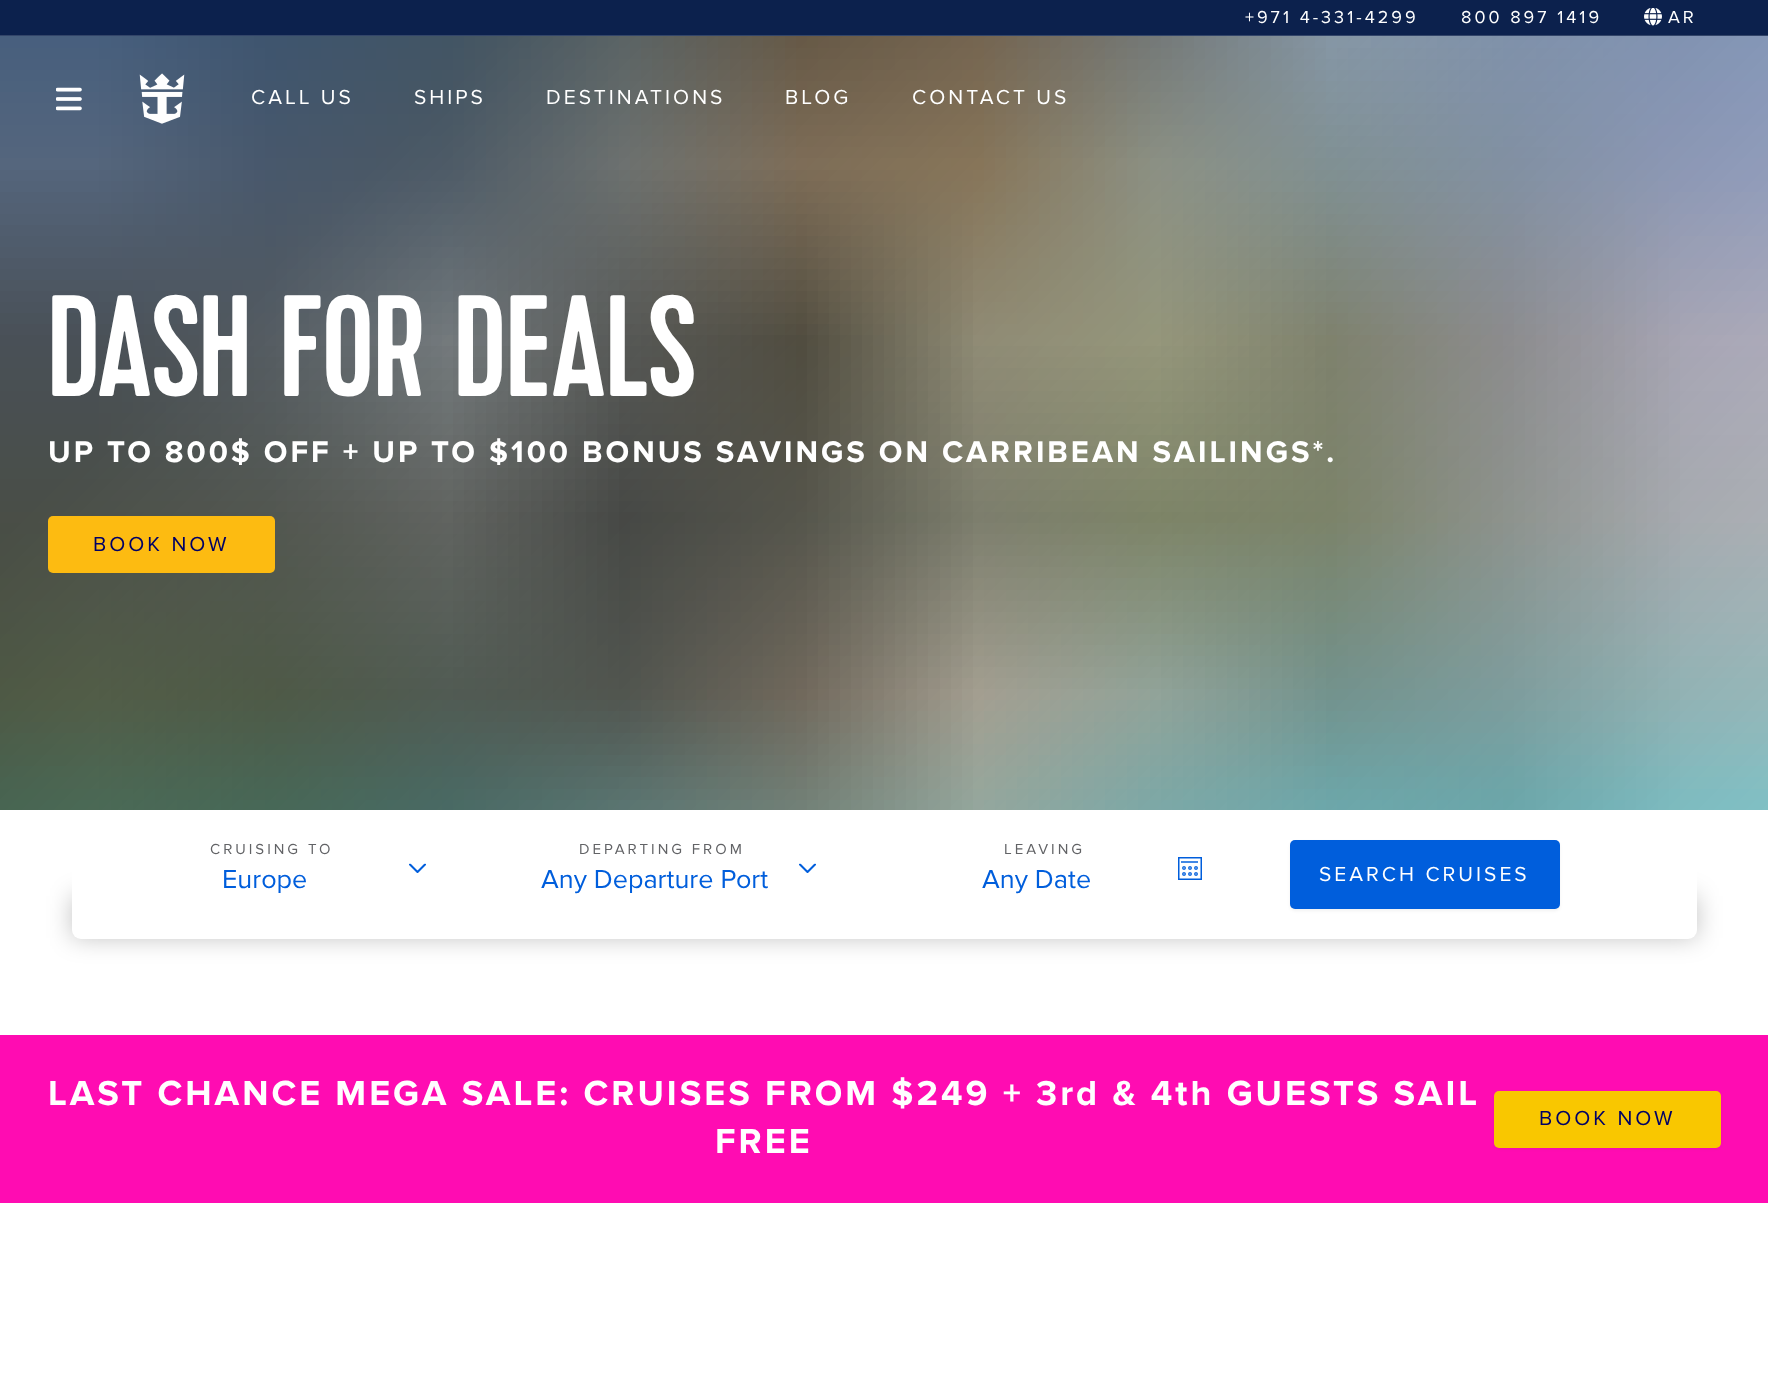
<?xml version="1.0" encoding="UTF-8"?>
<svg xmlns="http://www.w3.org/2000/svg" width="1768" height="1373">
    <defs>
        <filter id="blur1" x="-50%" y="-200%" width="200%" height="500%"><feGaussianBlur stdDeviation="12"/></filter>
        <clipPath id="clip1"><path d="M 408.5 874 V 863.5 H 426.5 V 874 Z"/></clipPath>
        <clipPath id="clip2"><path d="M 798.5 874 V 863.5 H 816.5 V 874 Z"/></clipPath>
        <filter id="blur2" x="-50%" y="-200%" width="200%" height="500%"><feGaussianBlur stdDeviation="1.5"/></filter>
    </defs>
    <rect width="100%" height="100%" fill="#FFFFFF"/>
    <rect x="0" y="0" width="1768" height="35" fill="#0C214D"/>
    <rect x="0" y="35" width="1768" height="1" fill="#334569"/>
    <text x="1245" y="23" font-family="Proxima Nova" font-size="18" letter-spacing="3" fill="#FFFFFF">+971 4-331-4299</text>
    <text x="1461" y="23" font-family="Proxima Nova" font-size="18" letter-spacing="3" fill="#FFFFFF">800 897 1419</text>
    <image x="1644" y="8" width="18" height="18" href="img_01.png"/>
    <text x="1668" y="23" font-family="Proxima Nova" font-size="18" letter-spacing="3" fill="#FFFFFF">AR</text>
    <image x="0" y="36" width="1768" height="774" href="img_04.png"/>
    <image x="56" y="87" width="26" height="24" href="img_02.png"/>
    <image x="139" y="73" width="46" height="51" href="img_03.png"/>
    <text x="251" y="104" font-family="Proxima Nova" font-size="21" letter-spacing="3" fill="#FFFFFF">CALL US</text>
    <text x="414" y="104" font-family="Proxima Nova" font-size="21" letter-spacing="3" fill="#FFFFFF">SHIPS</text>
    <text x="546" y="104" font-family="Proxima Nova" font-size="21" letter-spacing="3" fill="#FFFFFF">DESTINATIONS</text>
    <text x="785" y="104" font-family="Proxima Nova" font-size="21" letter-spacing="3" fill="#FFFFFF">BLOG</text>
    <text x="912" y="104" font-family="Proxima Nova" font-size="21" letter-spacing="3" fill="#FFFFFF">CONTACT US</text>
    <text x="48" y="396" font-family="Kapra" font-size="144" fill="#FFFFFF">DASH FOR DEALS</text>
    <text x="48" y="462" font-family="Proxima Nova" font-size="30.95" font-weight="700" letter-spacing="3" fill="#FFFFFF">UP TO 800$ OFF + UP TO $100 BONUS SAVINGS ON CARRIBEAN SAILINGS*.</text>
    <rect x="48" y="516" width="227" height="57" rx="5" fill="#FDBB11"/>
    <text x="93" y="551" font-family="Proxima Nova" font-size="21" letter-spacing="3" fill="#000066">BOOK NOW</text>
    <rect x="72" y="896" width="1625" height="42" fill="#000000" fill-opacity="0.24" filter="url(#blur1)"/>
    <rect x="72" y="810" width="1625" height="129" rx="9" fill="#FFFFFF"/>
    <text x="210" y="854" font-family="Proxima Nova" font-size="15" letter-spacing="3" fill="#626366">CRUISING TO</text>
    <text x="222" y="888" font-family="Proxima Nova" font-size="27" fill="#005EDC">Europe</text>
    <g clip-path="url(#clip1)">
        <g clip-path="url(#clip1)">
            <path d="M 410 864.5 L 417.5 872 L 425 864.5" fill="none" stroke="#005EDC" stroke-width="2.1" stroke-linecap="round" stroke-linejoin="round"/>
        </g>
    </g>
    <text x="579" y="854" font-family="Proxima Nova" font-size="15" letter-spacing="3" fill="#626366">DEPARTING FROM</text>
    <text x="541" y="888" font-family="Proxima Nova" font-size="27" fill="#005EDC">Any Departure Port</text>
    <g clip-path="url(#clip2)">
        <g clip-path="url(#clip2)">
            <path d="M 800 864.5 L 807.5 872 L 815 864.5" fill="none" stroke="#005EDC" stroke-width="2.1" stroke-linecap="round" stroke-linejoin="round"/>
        </g>
    </g>
    <text x="1004" y="854" font-family="Proxima Nova" font-size="15" letter-spacing="3" fill="#626366">LEAVING</text>
    <text x="982" y="888" font-family="Proxima Nova" font-size="27" fill="#005EDC">Any Date</text>
    <image x="1178" y="857" width="24" height="23" href="img_05.png"/>
    <rect x="1290" y="842" width="270" height="69" rx="5" fill="#000000" fill-opacity="0.05" filter="url(#blur2)"/>
    <rect x="1290" y="840" width="270" height="69" rx="5" fill="#005EDC"/>
    <text x="1319" y="881" font-family="Proxima Nova" font-size="21" letter-spacing="3" fill="#FFFFFF">SEARCH CRUISES</text>
    <rect x="0" y="1035" width="1768" height="168" fill="#FF0CB2"/>
    <text x="48" y="1105" font-family="Proxima Nova" font-size="36" font-weight="700" letter-spacing="3" fill="#FFFFFF">LAST CHANCE MEGA SALE: CRUISES FROM $249 + 3rd &amp; 4th GUESTS SAIL</text>
    <text x="715" y="1153" font-family="Proxima Nova" font-size="36" font-weight="700" letter-spacing="3" fill="#FFFFFF">FREE</text>
    <rect x="1494" y="1092" width="227" height="57" rx="5" fill="#000000" fill-opacity="0.05" filter="url(#blur2)"/>
    <rect x="1494" y="1091" width="227" height="57" rx="5" fill="#F9C700"/>
    <text x="1539" y="1125" font-family="Proxima Nova" font-size="21" letter-spacing="3" fill="#000066">BOOK NOW</text>
</svg>
